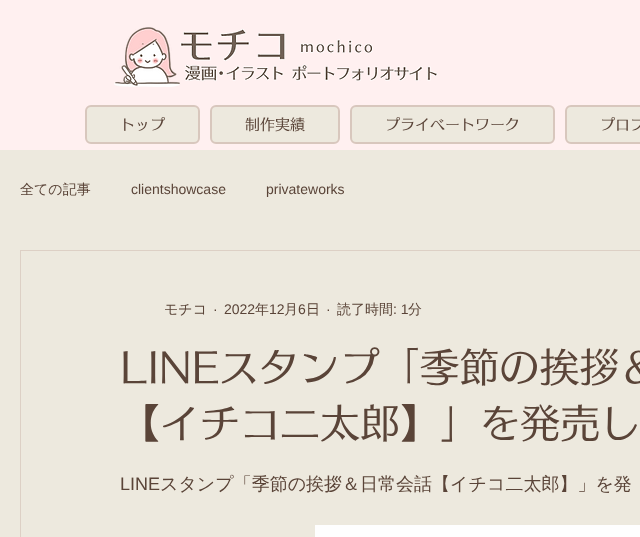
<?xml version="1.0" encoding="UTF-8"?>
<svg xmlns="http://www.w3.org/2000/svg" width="640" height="537">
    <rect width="100%" height="100%" fill="#FFF0F0"/>
    <image x="114" y="27" width="324" height="60" href="img_01.png"/>
    <rect x="86" y="106" width="113" height="37" rx="5" fill="#EDE9DE" stroke="#D8C7BD" stroke-width="2"/>
    <text x="120" y="130" font-family="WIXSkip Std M" font-size="15" font-weight="500" fill="#5A4438">トップ</text>
    <rect x="211" y="106" width="128" height="37" rx="5" fill="#EDE9DE" stroke="#D8C7BD" stroke-width="2"/>
    <text x="245" y="130" font-family="WIXSkip Std M" font-size="15" font-weight="500" fill="#5A4438">制作実績</text>
    <rect x="351" y="106" width="203" height="37" rx="5" fill="#EDE9DE" stroke="#D8C7BD" stroke-width="2"/>
    <text x="385" y="130" font-family="WIXSkip Std M" font-size="15" font-weight="500" fill="#5A4438">プライベートワーク</text>
    <rect x="566" y="106" width="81" height="37" rx="5" fill="#EDE9DE" stroke="#D8C7BD" stroke-width="2"/>
    <text x="600" y="130" font-family="WIXSkip Std M" font-size="15" font-weight="500" fill="#5A4438">プロフ</text>
    <rect x="0" y="150" width="640" height="387" fill="#EDE9DE"/>
    <text x="20" y="194" font-family="WenQuanYi Zen Hei" font-size="14" font-weight="500" fill="#5A4438">全ての記事</text>
    <text x="131" y="194" font-family="Liberation Sans" font-size="14" fill="#5A4438">clientshowcase</text>
    <text x="266" y="194" font-family="Liberation Sans" font-size="14" fill="#5A4438">privateworks</text>
    <rect x="20.5" y="250.5" width="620" height="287" fill="none" stroke="#DDD0C5"/>
    <text x="164" y="314" font-family="WenQuanYi Zen Hei" font-size="14" font-weight="500" fill="#5A4438">モチコ</text>
    <text x="213" y="314" font-family="Liberation Sans" font-size="14" fill="#5A4438">·</text>
    <text x="224" y="314" font-family="Liberation Sans" font-size="14" fill="#5A4438">2022</text>
    <text x="255" y="314" font-family="WenQuanYi Zen Hei" font-size="14" font-weight="500" fill="#5A4438">年</text>
    <text x="269" y="314" font-family="Liberation Sans" font-size="14" fill="#5A4438">12</text>
    <text x="284" y="314" font-family="WenQuanYi Zen Hei" font-size="14" font-weight="500" fill="#5A4438">月</text>
    <text x="298" y="314" font-family="Liberation Sans" font-size="14" fill="#5A4438">6</text>
    <text x="306" y="314" font-family="WenQuanYi Zen Hei" font-size="14" font-weight="500" fill="#5A4438">日</text>
    <text x="326" y="314" font-family="Liberation Sans" font-size="14" fill="#5A4438">·</text>
    <text x="337" y="314" font-family="WenQuanYi Zen Hei" font-size="14" font-weight="500" fill="#5A4438">読了時間</text>
    <text x="393" y="314" font-family="Liberation Sans" font-size="14" fill="#5A4438">: 1</text>
    <text x="408" y="314" font-family="WenQuanYi Zen Hei" font-size="14" font-weight="500" fill="#5A4438">分</text>
    <text font-family="WIXSkip Std M" font-size="40" font-weight="500" fill="#5A4438">
        <tspan x="120" y="382">LINEスタンプ「季節の挨拶＆</tspan>
        <tspan x="120" y="438">【イチコ二太郎】」を発売し</tspan>
    </text>
    <text x="120" y="490" font-family="Liberation Sans" font-size="18" fill="#5A4438">LINE</text>
    <text x="160" y="490" font-family="WenQuanYi Zen Hei" font-size="18" font-weight="500" fill="#5A4438">スタンプ「季節の挨拶＆日常会話【イチコ二太郎】」を発</text>
    <rect x="315" y="525" width="325" height="12" fill="#FEFEFE"/>
</svg>
